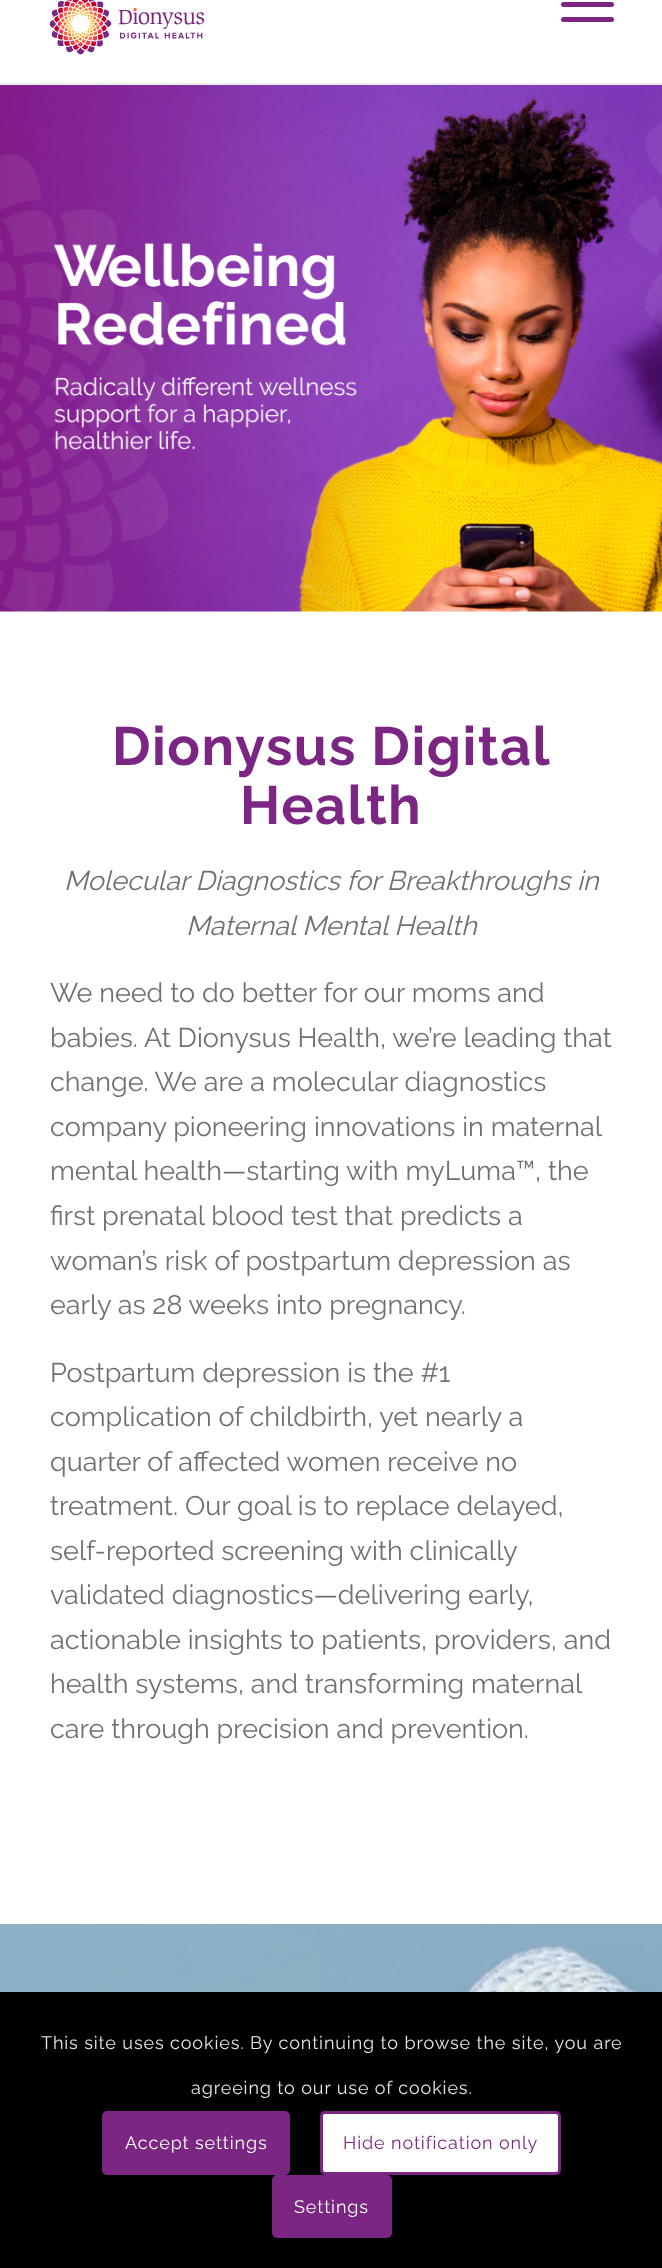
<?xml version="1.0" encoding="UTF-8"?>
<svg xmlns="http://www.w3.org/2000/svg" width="662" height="2268">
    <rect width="100%" height="100%" fill="#FFFFFF"/>
    <rect x="0" y="83" width="662" height="2" fill="#EBEBEB"/>
    <image x="50" y="0" width="155" height="55" href="img_01.png"/>
    <rect x="561" y="2" width="53" height="5" rx="2.5" fill="#7A2682"/>
    <rect x="561" y="17" width="53" height="5" rx="2.5" fill="#7A2682"/>
    <image x="0" y="85" width="662" height="527" href="img_02.png"/>
    <text x="112" y="765" font-family="Raleway" font-size="54" font-weight="100" letter-spacing="1.5" fill="#7A2682">Dionysus Digital</text>
    <text x="240" y="824" font-family="Raleway" font-size="54" font-weight="100" letter-spacing="1.5" fill="#7A2682">Health</text>
    <text x="64" y="890" font-family="Raleway" font-size="27" font-weight="100" font-style="italic" fill="#707070">Molecular Diagnostics for Breakthroughs in</text>
    <text x="186" y="935" font-family="Raleway" font-size="27" font-weight="100" font-style="italic" fill="#707070">Maternal Mental Health</text>
    <text font-family="'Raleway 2'" font-size="27" font-weight="100" fill="#707070">
        <tspan x="50" y="1002">We need to do better for our moms and</tspan>
        <tspan x="50" y="1047">babies. At Dionysus Health, we’re leading that</tspan>
        <tspan x="50" y="1091">change. We are a molecular diagnostics</tspan>
        <tspan x="50" y="1136">company pioneering innovations in maternal</tspan>
        <tspan x="50" y="1180">mental health—starting with myLuma™, the</tspan>
        <tspan x="50" y="1225">first prenatal blood test that predicts a</tspan>
        <tspan x="50" y="1270">woman’s risk of postpartum depression as</tspan>
        <tspan x="50" y="1314">early as 28 weeks into pregnancy.</tspan>
    </text>
    <text font-family="'Raleway 2'" font-size="27" font-weight="100" fill="#707070">
        <tspan x="50" y="1382">Postpartum depression is the #1</tspan>
        <tspan x="50" y="1426">complication of childbirth, yet nearly a</tspan>
        <tspan x="50" y="1471">quarter of affected women receive no</tspan>
        <tspan x="50" y="1515">treatment. Our goal is to replace delayed,</tspan>
        <tspan x="50" y="1560">self-reported screening with clinically</tspan>
        <tspan x="50" y="1604">validated diagnostics—delivering early,</tspan>
        <tspan x="50" y="1649">actionable insights to patients, providers, and</tspan>
        <tspan x="50" y="1693">health systems, and transforming maternal</tspan>
        <tspan x="50" y="1738">care through precision and prevention.</tspan>
    </text>
    <image x="0" y="1924" width="662" height="68" href="img_03.png"/>
    <rect x="0" y="1992" width="662" height="276" fill="#000000"/>
    <text x="41" y="2049" font-family="'Raleway 2'" font-size="18" font-weight="100" letter-spacing="0.9" fill="#E6E6E6">This site uses cookies. By continuing to browse the site, you are</text>
    <text x="191" y="2094" font-family="'Raleway 2'" font-size="18" font-weight="100" letter-spacing="0.9" fill="#E6E6E6">agreeing to our use of cookies.</text>
    <rect x="103.5" y="2112.5" width="185" height="61" rx="3.5" fill="#7A2682" stroke="#7A2682" stroke-width="3"/>
    <text x="125" y="2149" font-family="'Raleway 2'" font-size="18" font-weight="100" letter-spacing="0.9" fill="#FFFFFF">Accept settings</text>
    <rect x="321.5" y="2112.5" width="238" height="61" rx="3.5" fill="#FFFFFF" stroke="#7A2682" stroke-width="3"/>
    <text x="343" y="2149" font-family="'Raleway 2'" font-size="18" font-weight="100" letter-spacing="0.9" fill="#7A2682">Hide notification only</text>
    <rect x="273.5" y="2176.5" width="117" height="60" rx="3.5" fill="#7A2682" stroke="#7A2682" stroke-width="3"/>
    <text x="294" y="2213" font-family="'Raleway 2'" font-size="18" font-weight="100" letter-spacing="0.9" fill="#FFFFFF">Settings</text>
</svg>
